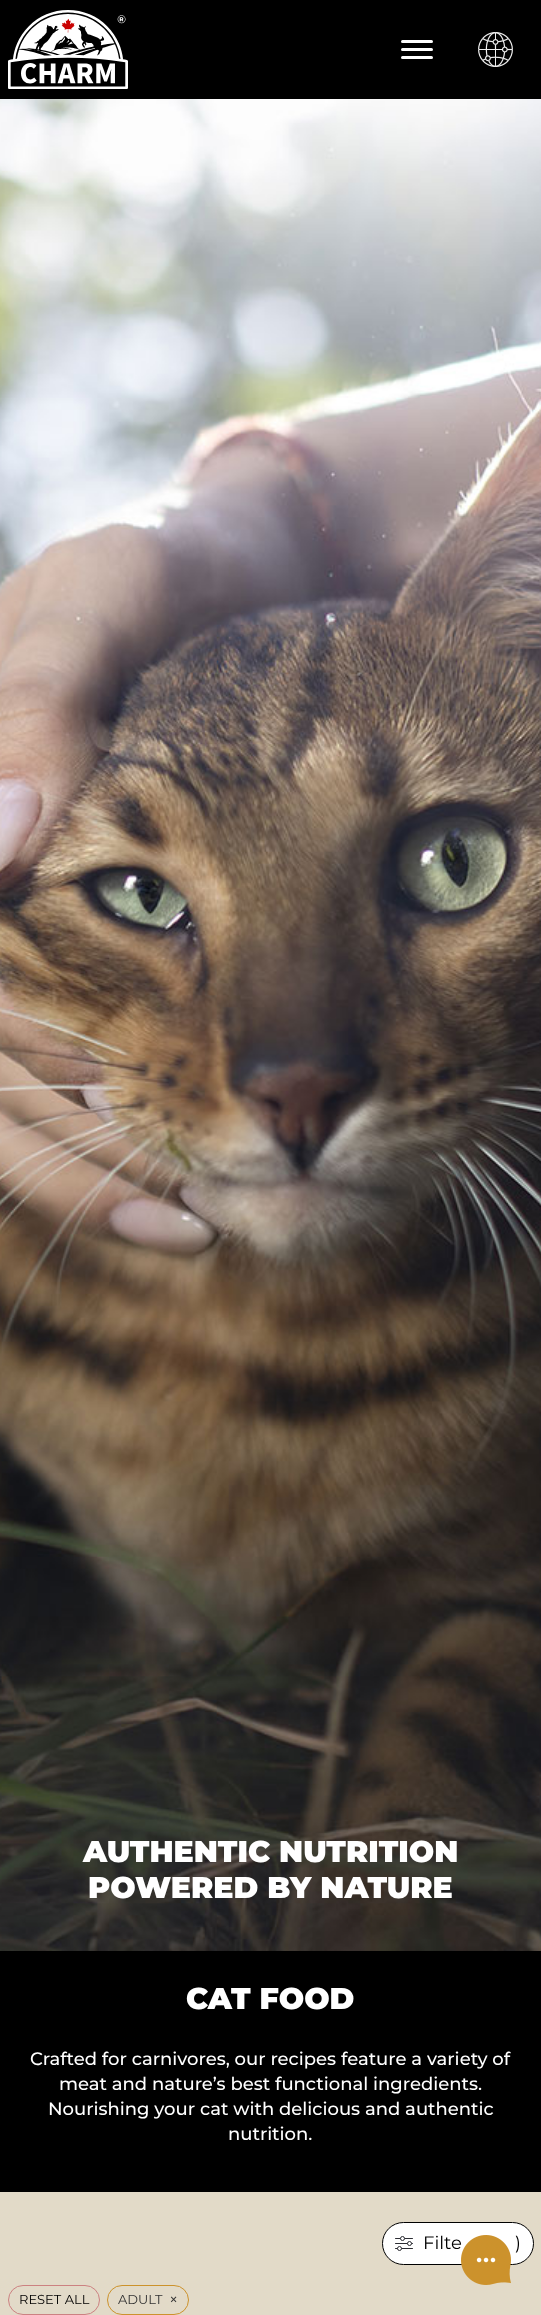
<?xml version="1.0" encoding="UTF-8"?>
<svg xmlns="http://www.w3.org/2000/svg" width="541" height="2315">
    <rect width="100%" height="100%" fill="#E2DAC8"/>
    <rect x="0" y="0" width="541" height="99" fill="#000000"/>
    <image x="8" y="10" width="120" height="79" href="img_01.png"/>
    <rect x="401" y="40" width="32" height="3" rx="1.5" fill="#FFFFFF"/>
    <rect x="401" y="48" width="32" height="3" rx="1.5" fill="#FFFFFF"/>
    <rect x="401" y="56" width="32" height="3" rx="1.5" fill="#FFFFFF"/>
    <image x="478" y="32" width="35" height="35" href="img_02.png"/>
    <image x="0" y="99" width="541" height="1852" href="img_03.png"/>
    <text x="83" y="1862" font-family="Montserrat" font-size="30" font-weight="900" fill="#FFFFFF">AUTHENTIC NUTRITION</text>
    <text x="88" y="1898" font-family="Montserrat" font-size="30" font-weight="900" fill="#FFFFFF">POWERED BY NATURE</text>
    <rect x="0" y="1951" width="541" height="241" fill="#000000"/>
    <text x="186" y="2009" font-family="Montserrat" font-size="30" font-weight="900" fill="#FFFFFF">CAT FOOD</text>
    <text x="30" y="2065" font-family="Montserrat" font-size="18" font-weight="500" fill="#FFFFFF">Crafted for carnivores, our recipes feature a variety of</text>
    <text x="59" y="2090" font-family="Montserrat" font-size="18" font-weight="500" fill="#FFFFFF">meat and nature’s best functional ingredients.</text>
    <text x="48" y="2115" font-family="Montserrat" font-size="18" font-weight="500" fill="#FFFFFF">Nourishing your cat with delicious and authentic</text>
    <text x="228" y="2140" font-family="Montserrat" font-size="18" font-weight="500" fill="#FFFFFF">nutrition.</text>
    <rect x="382.5" y="2222.5" width="151" height="42" rx="21" fill="#FFFFFF" stroke="#000000"/>
    <rect x="395" y="2238" width="18" height="1" rx="0.5" fill="#2C2D33"/>
    <circle cx="402.5" cy="2238.5" r="2" fill="#FFFFFF" stroke="#2C2D33"/>
    <rect x="395" y="2243" width="18" height="1" rx="0.5" fill="#2C2D33"/>
    <circle cx="409.5" cy="2243.5" r="2" fill="#FFFFFF" stroke="#2C2D33"/>
    <rect x="395" y="2248" width="18" height="1" rx="0.5" fill="#2C2D33"/>
    <circle cx="399.5" cy="2248.5" r="2" fill="#FFFFFF" stroke="#2C2D33"/>
    <text x="423" y="2249" font-family="Montserrat" font-size="18" fill="#000000">Filte</text>
    <text x="515" y="2249" font-family="Montserrat" font-size="18" fill="#000000">)</text>
    <rect x="8.5" y="2285.5" width="91" height="29" rx="14.5" fill="none" stroke="#CC8181"/>
    <text x="19" y="2304" font-family="Montserrat" font-size="13" fill="#000000">RESET ALL</text>
    <rect x="107.5" y="2285.5" width="81" height="29" rx="14.5" fill="none" stroke="#CC922C"/>
    <text x="118" y="2304" font-family="Montserrat" font-size="13" fill="#333333">ADULT</text>
    <text x="169" y="2305" font-family="Montserrat" font-size="16" fill="#333333">×</text>
    <image x="461" y="2235" width="50" height="50" href="img_04.png"/>
</svg>
